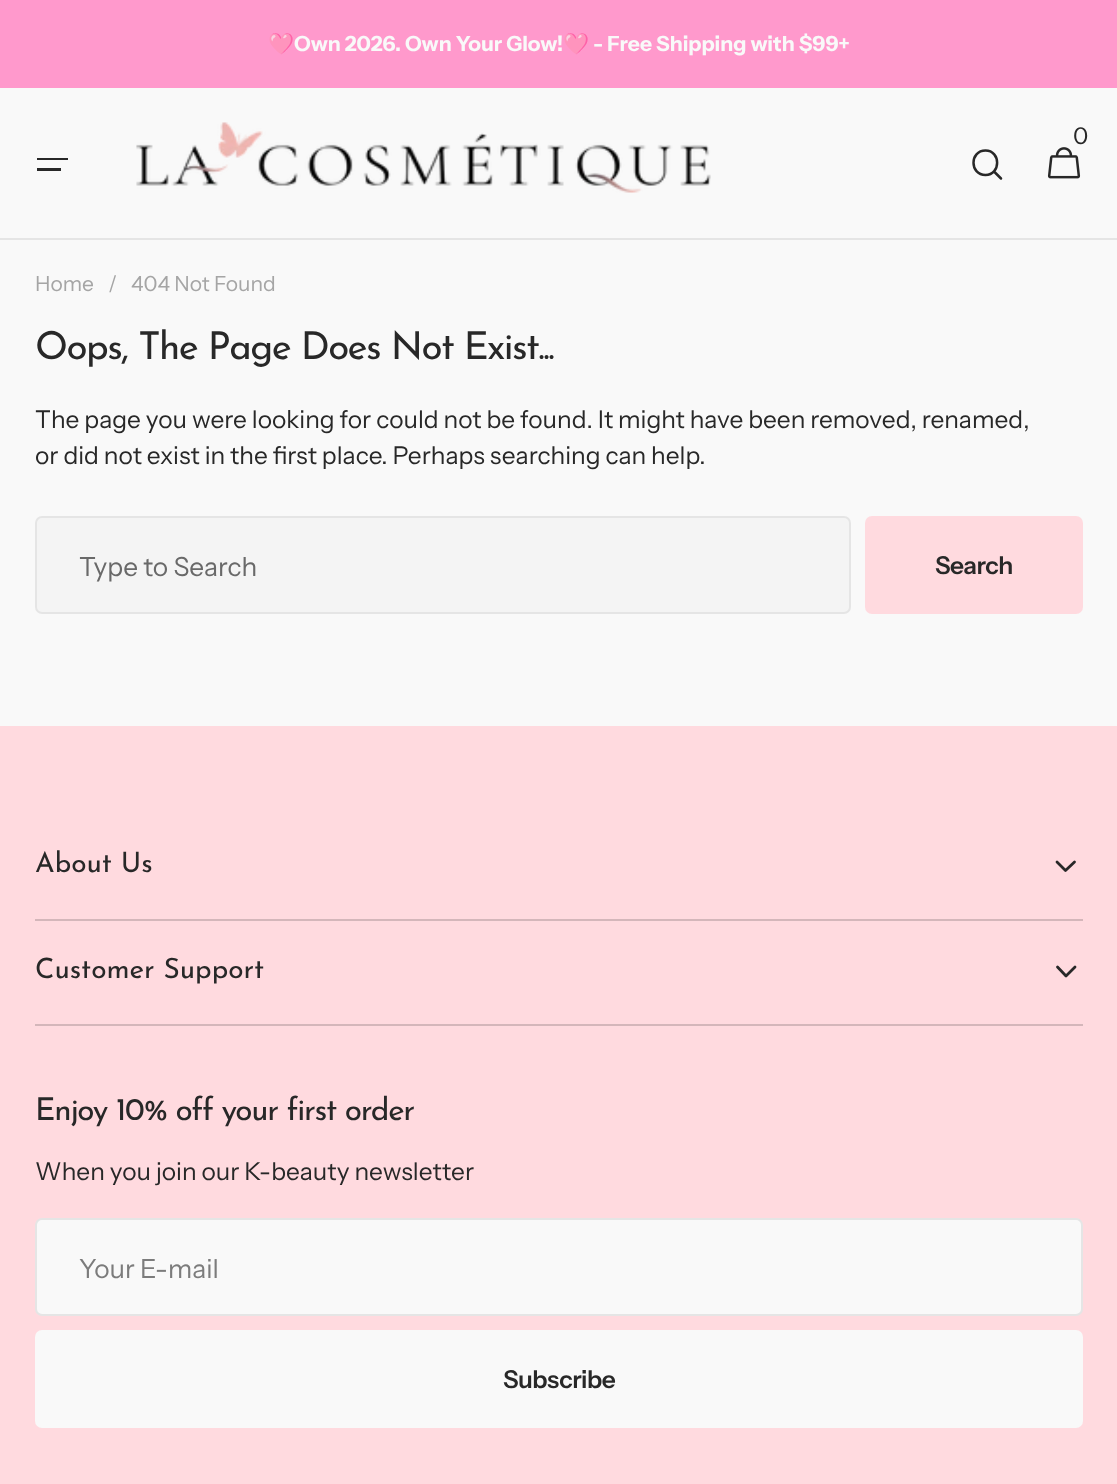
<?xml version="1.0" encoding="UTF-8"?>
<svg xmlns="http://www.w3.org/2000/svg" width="1117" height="1484">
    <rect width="100%" height="100%" fill="#F9F9F9"/>
    <rect x="0" y="0" width="1117" height="88" fill="#FF99CC"/>
    <text x="268" y="51" font-family="Noto Color Emoji" font-size="21" font-weight="700" fill="#F9F9F9">🩷</text>
    <text x="294" y="51" font-family="Instrument Sans" font-size="21" font-weight="700" fill="#F9F9F9">Own 2026. Own Your Glow!</text>
    <text x="563" y="51" font-family="Noto Color Emoji" font-size="21" font-weight="700" fill="#F9F9F9">🩷</text>
    <text x="593" y="51" font-family="Instrument Sans" font-size="21" font-weight="700" fill="#F9F9F9">- Free Shipping with $99+</text>
    <image x="136" y="122" width="575" height="71" href="img_01.png"/>
    <text x="1073" y="144" font-family="Instrument Sans" font-size="23" fill="#282828">0</text>
    <image x="1047" y="147" width="34" height="32" href="img_02.png"/>
    <path d="M 985.5 175 C 1001 175 1001 150.5 985.5 150.5 C 969.5 150.5 969.5 175 985.5 175 Z M 994 171.5 L 1001 178.5" fill="none" stroke="#282828" stroke-width="2.5" stroke-linecap="round" stroke-linejoin="round"/>
    <rect x="37" y="158" width="31" height="2" fill="#282828"/>
    <rect x="37" y="168" width="24" height="3" fill="#282828"/>
    <rect x="0" y="238" width="1117" height="2" fill="#E5E5E5"/>
    <text x="35" y="291" font-family="Instrument Sans" font-size="21" fill="#A5A5A5">Home</text>
    <text x="108" y="291" font-family="Instrument Sans" font-size="21" fill="#A5A5A5">/</text>
    <text x="131" y="291" font-family="Instrument Sans" font-size="21" fill="#A5A5A5">404 Not Found</text>
    <text x="35" y="359" font-family="Josefin Sans" font-size="38.5" letter-spacing="-1.55" fill="#282828">Oops, The Page Does Not Exist...</text>
    <text font-family="Instrument Sans" font-size="24.5" fill="#282828">
        <tspan x="35" y="428">The page you were looking for could not be found. It might have been removed, renamed,</tspan>
        <tspan x="35" y="464">or did not exist in the first place. Perhaps searching can help.</tspan>
    </text>
    <rect x="36" y="517" width="814" height="96" rx="6" fill="#F4F4F4" stroke="#E5E5E5" stroke-width="2"/>
    <text x="79" y="576" font-family="Instrument Sans" font-size="26.25" fill="#696969">Type to Search</text>
    <rect x="865" y="516" width="218" height="98" rx="7" fill="#FFDADF"/>
    <text x="935" y="574" font-family="Instrument Sans" font-size="24.5" font-weight="600" letter-spacing="-0.5" fill="#282828">Search</text>
    <rect x="0" y="726" width="1117" height="758" fill="#FFDADF"/>
    <rect x="35" y="919" width="1048" height="2" fill="#D4B6BA"/>
    <text x="35" y="872" font-family="Josefin Sans" font-size="28" fill="#282828">About Us</text>
    <path d="M 1074.5 862 L 1065.5 870.5 L 1057 862" fill="none" stroke="#282828" stroke-width="2.8" stroke-linecap="round" stroke-linejoin="round"/>
    <rect x="35" y="1024" width="1048" height="2" fill="#D4B6BA"/>
    <text x="35" y="978" font-family="Josefin Sans" font-size="28" fill="#282828">Customer Support</text>
    <path d="M 1075 967 L 1066 976 L 1057.5 967" fill="none" stroke="#282828" stroke-width="2.8" stroke-linecap="round" stroke-linejoin="round"/>
    <text x="35" y="1120" font-family="Josefin Sans" font-size="31.5" letter-spacing="-1.25" fill="#282828">Enjoy 10% off your first order</text>
    <text x="35" y="1180" font-family="Instrument Sans" font-size="24.5" fill="#282828">When you join our K-beauty newsletter</text>
    <rect x="36" y="1219" width="1046" height="96" rx="6" fill="#F9F9F9" stroke="#E5E5E5" stroke-width="2"/>
    <text x="79" y="1278" font-family="Instrument Sans" font-size="26.25" fill="#7C7C7C">Your E-mail</text>
    <rect x="35" y="1330" width="1048" height="98" rx="7" fill="#F9F9F9"/>
    <text x="503" y="1388" font-family="Instrument Sans" font-size="24.5" font-weight="600" letter-spacing="-0.5" fill="#282828">Subscribe</text>
</svg>
